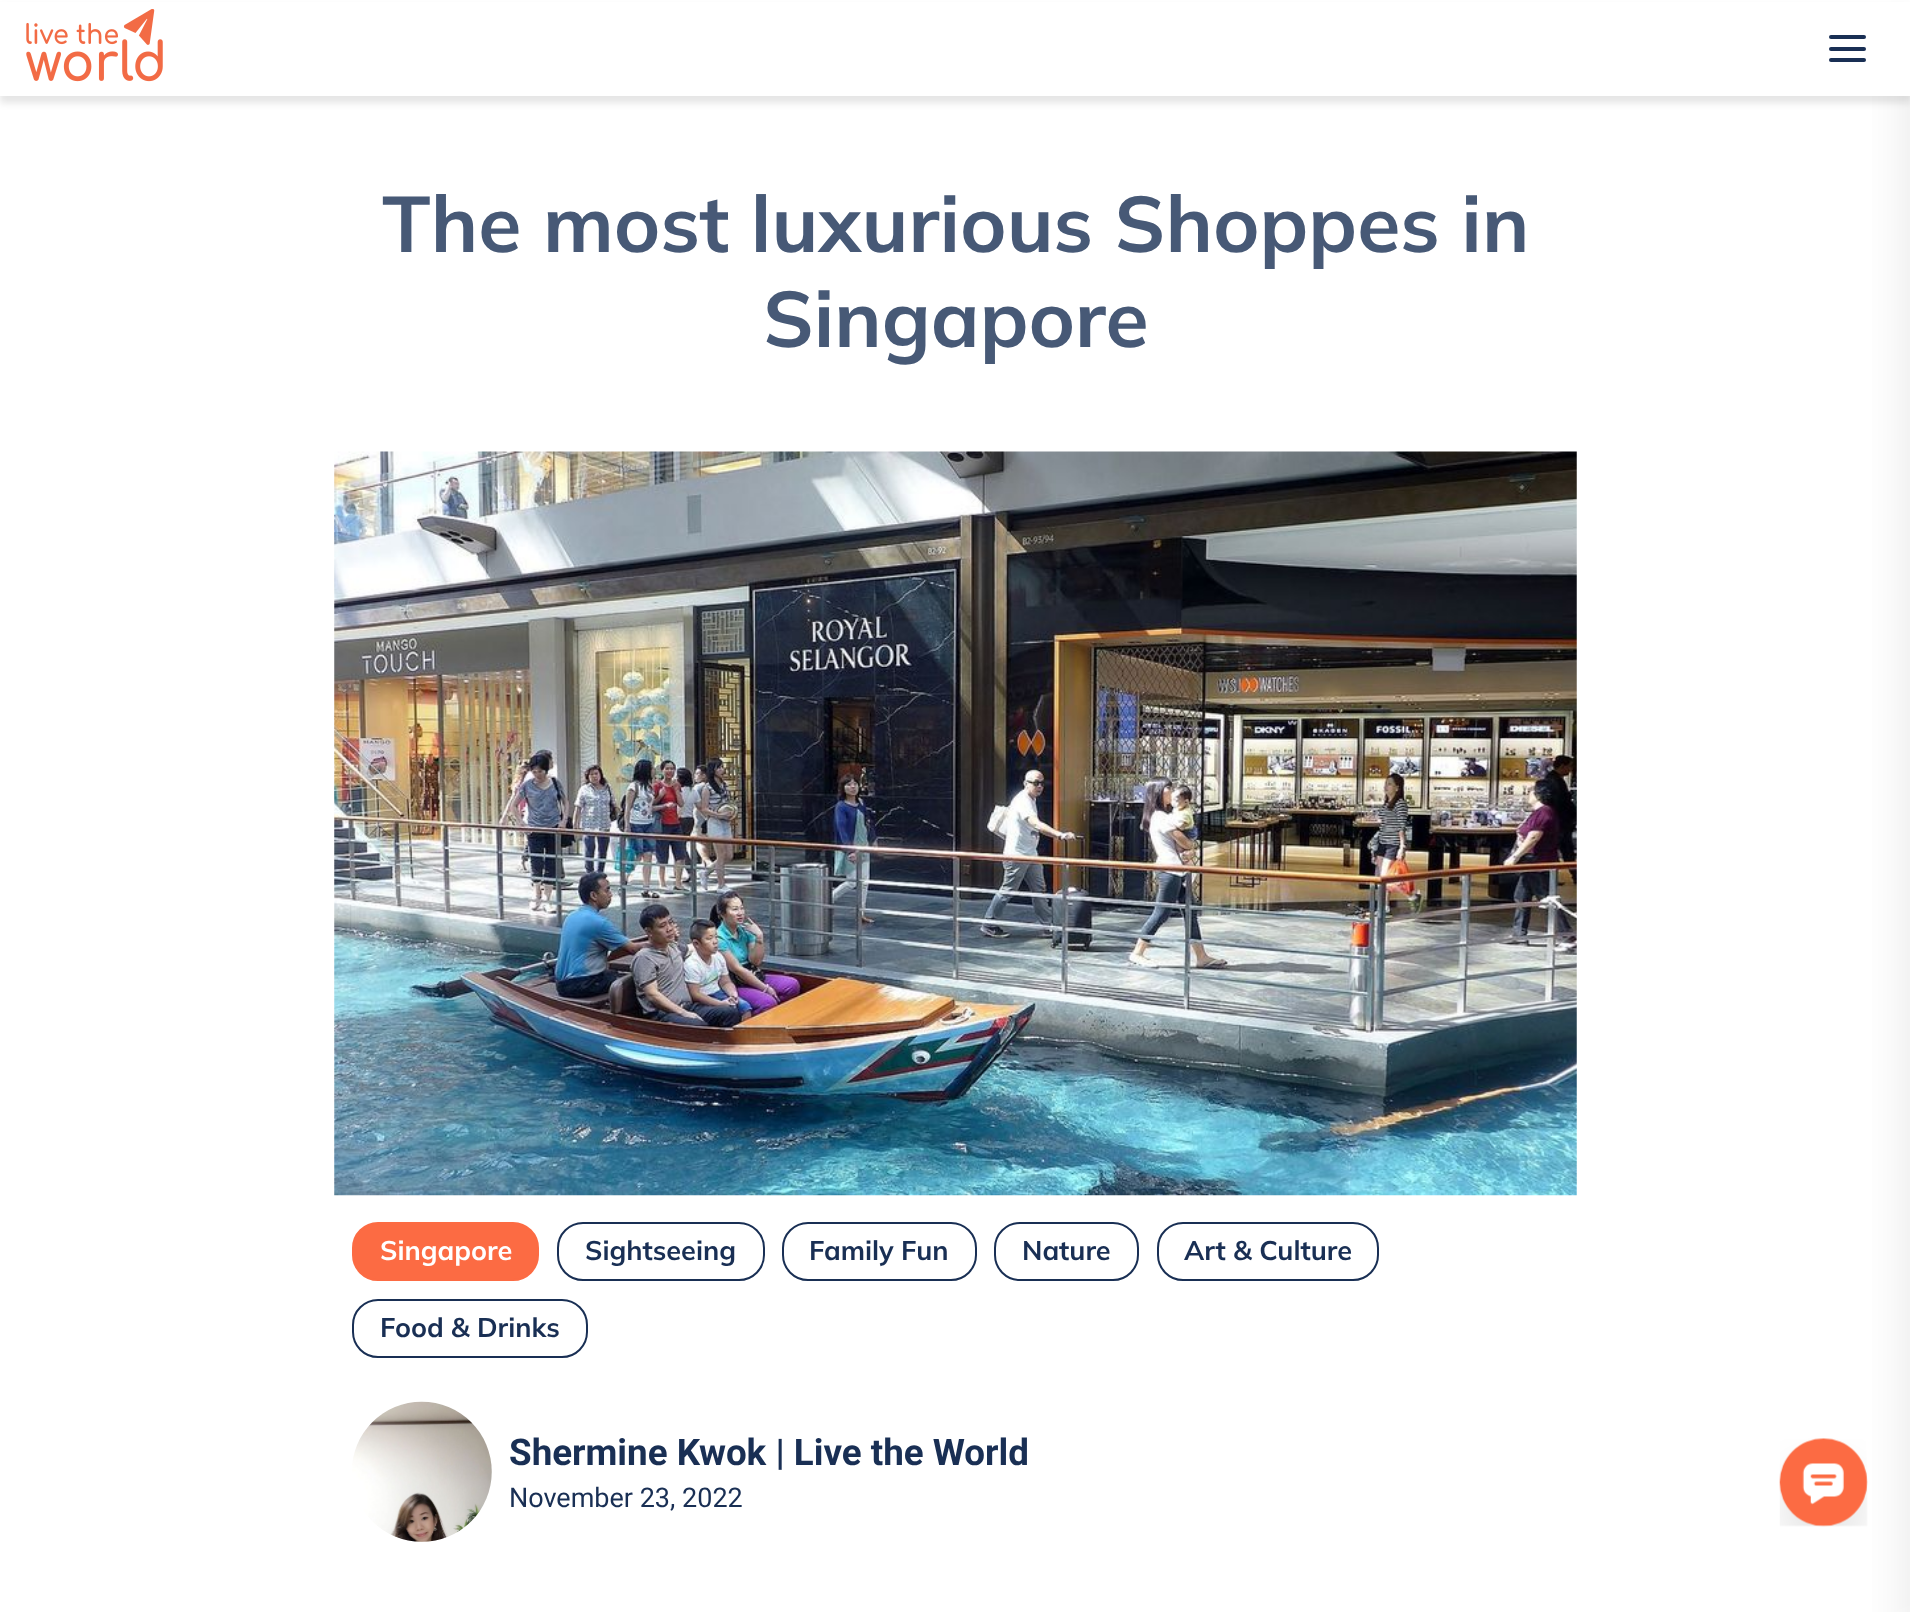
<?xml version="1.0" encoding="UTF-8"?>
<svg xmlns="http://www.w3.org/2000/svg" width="1910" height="1612">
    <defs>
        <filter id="blur1" x="-50%" y="-200%" width="200%" height="500%"><feGaussianBlur stdDeviation="3.5"/></filter>
        <filter id="blur2" x="-50%" y="-200%" width="200%" height="500%"><feGaussianBlur stdDeviation="26"/></filter>
    </defs>
    <rect width="100%" height="100%" fill="#FFFFFF"/>
    <rect x="0" y="7" width="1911" height="96" fill="#000000" fill-opacity="0.1" filter="url(#blur1)"/>
    <rect x="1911" y="35" width="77" height="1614" fill="#000000" fill-opacity="0.1" filter="url(#blur2)"/>
    <rect x="0" y="2" width="1910" height="94" fill="#FFFFFF"/>
    <image x="26" y="9" width="137" height="73" href="img_01.png"/>
    <rect x="1829" y="35" width="37" height="4" rx="2" fill="#192F54"/>
    <rect x="1829" y="47" width="37" height="4" rx="2" fill="#192F54"/>
    <rect x="1829" y="58" width="37" height="4" rx="2" fill="#192F54"/>
    <text x="382" y="252" font-family="Mulish" font-size="78.75" font-weight="700" fill="#475976">The most luxurious Shoppes in</text>
    <text x="763" y="347" font-family="Mulish" font-size="78.75" font-weight="700" fill="#475976">Singapore</text>
    <image x="334" y="451" width="1243" height="745" href="img_02.png"/>
    <rect x="353" y="1223" width="185" height="57" rx="25" fill="#FC6B43" stroke="#FC6B43" stroke-width="2"/>
    <text x="380" y="1260" font-family="Mulish" font-size="27" font-weight="700" fill="#FFFFFF">Singapore</text>
    <rect x="558" y="1223" width="206" height="57" rx="25" fill="none" stroke="#192F54" stroke-width="2"/>
    <text x="585" y="1260" font-family="Mulish" font-size="27" font-weight="700" fill="#192F54">Sightseeing</text>
    <rect x="783" y="1223" width="193" height="57" rx="25" fill="none" stroke="#192F54" stroke-width="2"/>
    <text x="809" y="1260" font-family="Mulish" font-size="27" font-weight="700" fill="#192F54">Family Fun</text>
    <rect x="995" y="1223" width="143" height="57" rx="25" fill="none" stroke="#192F54" stroke-width="2"/>
    <text x="1022" y="1260" font-family="Mulish" font-size="27" font-weight="700" fill="#192F54">Nature</text>
    <rect x="1158" y="1223" width="220" height="57" rx="25" fill="none" stroke="#192F54" stroke-width="2"/>
    <text x="1184" y="1260" font-family="Mulish" font-size="27" font-weight="700" fill="#192F54">Art &amp; Culture</text>
    <rect x="353" y="1300" width="234" height="57" rx="25" fill="none" stroke="#192F54" stroke-width="2"/>
    <text x="380" y="1337" font-family="Mulish" font-size="27" font-weight="700" fill="#192F54">Food &amp; Drinks</text>
    <image x="352" y="1401" width="140" height="141" href="img_03.png"/>
    <text x="509" y="1465" font-family="Roboto" font-size="36.75" font-weight="700" fill="#192F54">Shermine Kwok | Live the World</text>
    <text x="509" y="1507" font-family="Roboto" font-size="27" fill="#192F54">November 23, 2022</text>
    <image x="1779" y="1438" width="89" height="89" href="img_04.png"/>
</svg>
